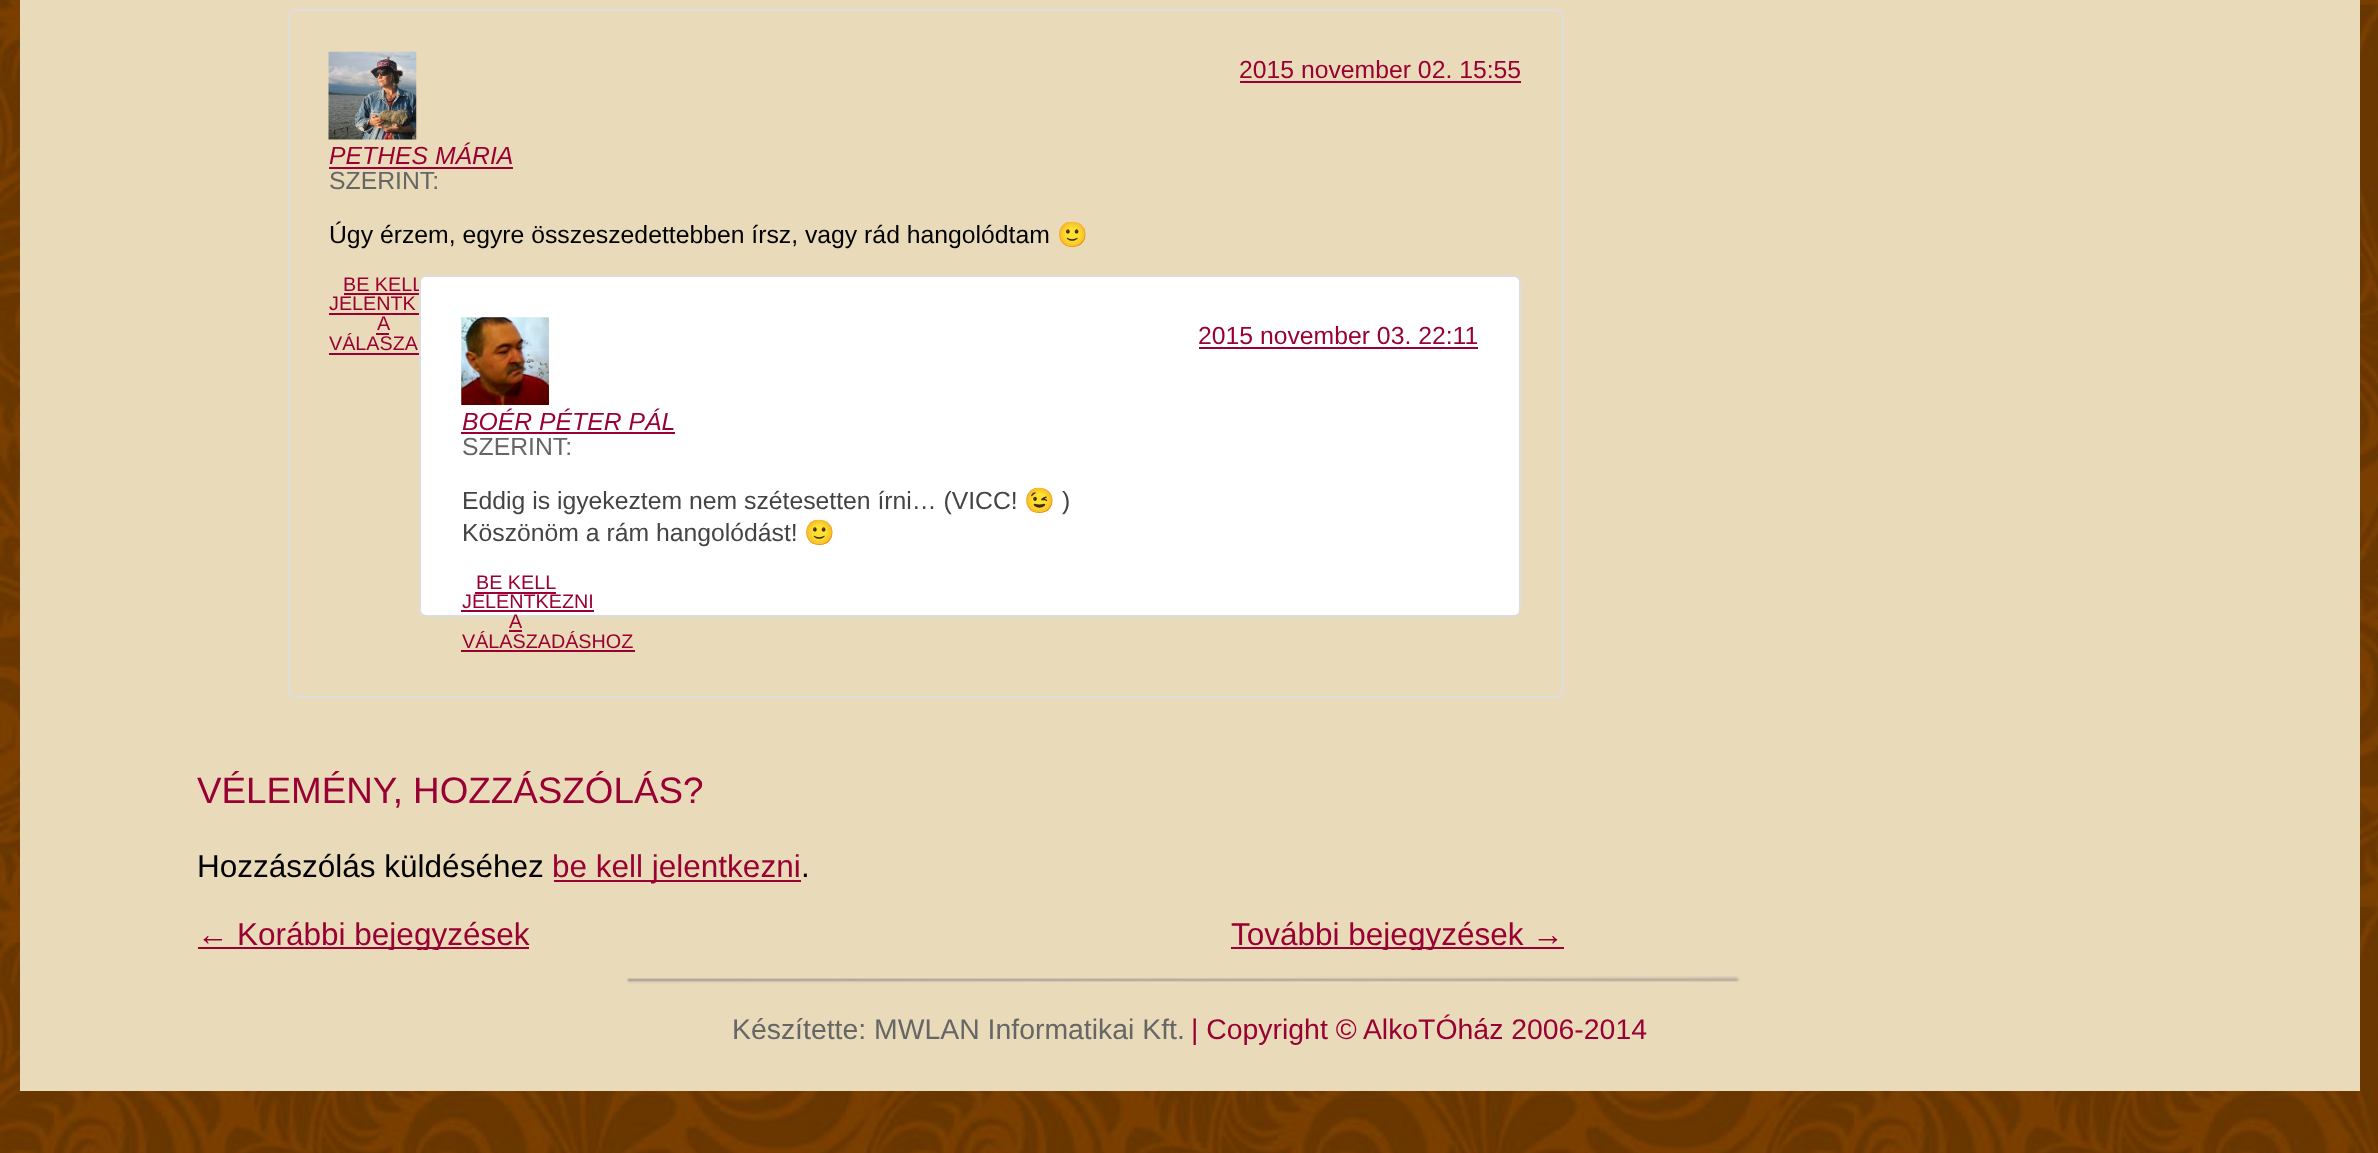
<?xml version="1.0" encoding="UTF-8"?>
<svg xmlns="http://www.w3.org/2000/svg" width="2378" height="1153">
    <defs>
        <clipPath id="clip1"><rect x="198" y="918" width="1366" height="32"/></clipPath>
    </defs>
    <rect width="100%" height="100%" fill="#FFFFFF"/>
    <image x="0" y="0" width="2378" height="1153" href="img_01.png"/>
    <rect x="20" y="0" width="2340" height="1091" fill="#E9DAB9"/>
    <rect x="289" y="10" width="1274" height="687" rx="6" fill="none" stroke="#DDDDDD" stroke-width="2"/>
    <text x="1239" y="78" font-family="Liberation Sans" font-size="24.75" fill="#990033">2015 november 02. 15:55</text>
    <rect x="1240" y="81" width="281" height="2" fill="#990033"/>
    <image x="328" y="51" width="89" height="89" href="img_02.png"/>
    <text x="329" y="164" font-family="Liberation Sans" font-size="24.75" font-style="italic" fill="#990033">PETHES MÁRIA</text>
    <rect x="329" y="167" width="184" height="2" fill="#990033"/>
    <text x="329" y="189" font-family="Liberation Sans" font-size="24.75" fill="#666666">SZERINT:</text>
    <text x="329" y="243" font-family="Liberation Sans" font-size="24.75" fill="#000000">Úgy érzem, egyre összeszedettebben írsz, vagy rád hangolódtam</text>
    <text x="1057" y="243" font-family="Noto Color Emoji" font-size="24.75" fill="#000000">🙂</text>
    <text x="343" y="291" font-family="Liberation Sans" font-size="19.75" fill="#990033">BE KELL</text>
    <text x="329" y="310" font-family="Liberation Sans" font-size="19.75" fill="#990033">JELENTK</text>
    <rect x="344" y="293" width="79" height="2" fill="#990033"/>
    <text x="377" y="330" font-family="Liberation Sans" font-size="19.75" fill="#990033">A</text>
    <rect x="329" y="313" width="90" height="2" fill="#990033"/>
    <rect x="376" y="333" width="13" height="2" fill="#990033"/>
    <text x="329" y="350" font-family="Liberation Sans" font-size="19.75" fill="#990033">VÁLASZA</text>
    <rect x="329" y="353" width="90" height="2" fill="#990033"/>
    <rect x="420" y="276" width="1100" height="340" rx="6" fill="#FFFFFF" stroke="#DDDDDD" stroke-width="2"/>
    <text x="1198" y="344" font-family="Liberation Sans" font-size="24.75" fill="#990033">2015 november 03. 22:11</text>
    <rect x="1199" y="347" width="279" height="2" fill="#990033"/>
    <image x="461" y="317" width="88" height="88" href="img_03.png"/>
    <text x="462" y="430" font-family="Liberation Sans" font-size="24.75" font-style="italic" fill="#990033">BOÉR PÉTER PÁL</text>
    <rect x="461" y="432" width="214" height="2" fill="#990033"/>
    <text x="462" y="455" font-family="Liberation Sans" font-size="24.75" fill="#666666">SZERINT:</text>
    <text x="462" y="509" font-family="Liberation Sans" font-size="24.75" fill="#444444">Eddig is igyekeztem nem szétesetten írni… (VICC!</text>
    <text x="1024" y="509" font-family="Noto Color Emoji" font-size="24.75" fill="#444444">😉</text>
    <text x="1062" y="509" font-family="Liberation Sans" font-size="24.75" fill="#444444">)</text>
    <text x="462" y="541" font-family="Liberation Sans" font-size="24.75" fill="#444444">Köszönöm a rám hangolódást!</text>
    <text x="804" y="541" font-family="Noto Color Emoji" font-size="24.75" fill="#444444">🙂</text>
    <text x="476" y="589" font-family="Liberation Sans" font-size="19.75" fill="#990033">BE KELL</text>
    <text x="462" y="608" font-family="Liberation Sans" font-size="19.75" fill="#990033">JELENTKEZNI</text>
    <rect x="475" y="592" width="81" height="2" fill="#990033"/>
    <rect x="461" y="610" width="133" height="2" fill="#990033"/>
    <text x="509" y="628" font-family="Liberation Sans" font-size="19.75" fill="#990033">A</text>
    <rect x="509" y="630" width="13" height="2" fill="#990033"/>
    <text x="462" y="648" font-family="Liberation Sans" font-size="19.75" fill="#990033">VÁLASZADÁSHOZ</text>
    <rect x="461" y="650" width="174" height="2" fill="#990033"/>
    <text x="197" y="803" font-family="Liberation Sans" font-size="36.8" fill="#990033">VÉLEMÉNY, HOZZÁSZÓLÁS?</text>
    <text x="197" y="877" font-family="Liberation Sans" font-size="31.5" fill="#000000">Hozzászólás küldéséhez</text>
    <rect x="554" y="880" width="247" height="2" fill="#990033"/>
    <text x="552" y="877" font-family="Liberation Sans" font-size="31.5" fill="#990033">be kell jelentkezni</text>
    <text x="801" y="877" font-family="Liberation Sans" font-size="31.5" fill="#000000">.</text>
    <text x="197" y="945" font-family="Liberation Sans" font-size="31.5" fill="#990033">←</text>
    <rect x="198" y="947" width="331" height="2" fill="#990033"/>
    <g clip-path="url(#clip1)">
        <text x="237" y="945" font-family="Liberation Sans" font-size="31.5" fill="#990033">Korábbi bejegyzések</text>
    </g>
    <rect x="1231" y="947" width="333" height="2" fill="#990033"/>
    <g clip-path="url(#clip1)">
        <text x="1231" y="945" font-family="Liberation Sans" font-size="31.5" fill="#990033">További bejegyzések →</text>
    </g>
    <image x="627" y="976" width="1113" height="8" href="img_04.png"/>
    <text x="732" y="1039" font-family="Liberation Sans" font-size="28.4" fill="#666666">Készítette: MWLAN Informatikai Kft.</text>
    <text x="1191" y="1039" font-family="Liberation Sans" font-size="28.4" fill="#990033">| Copyright © AlkoTÓház 2006-2014</text>
</svg>
